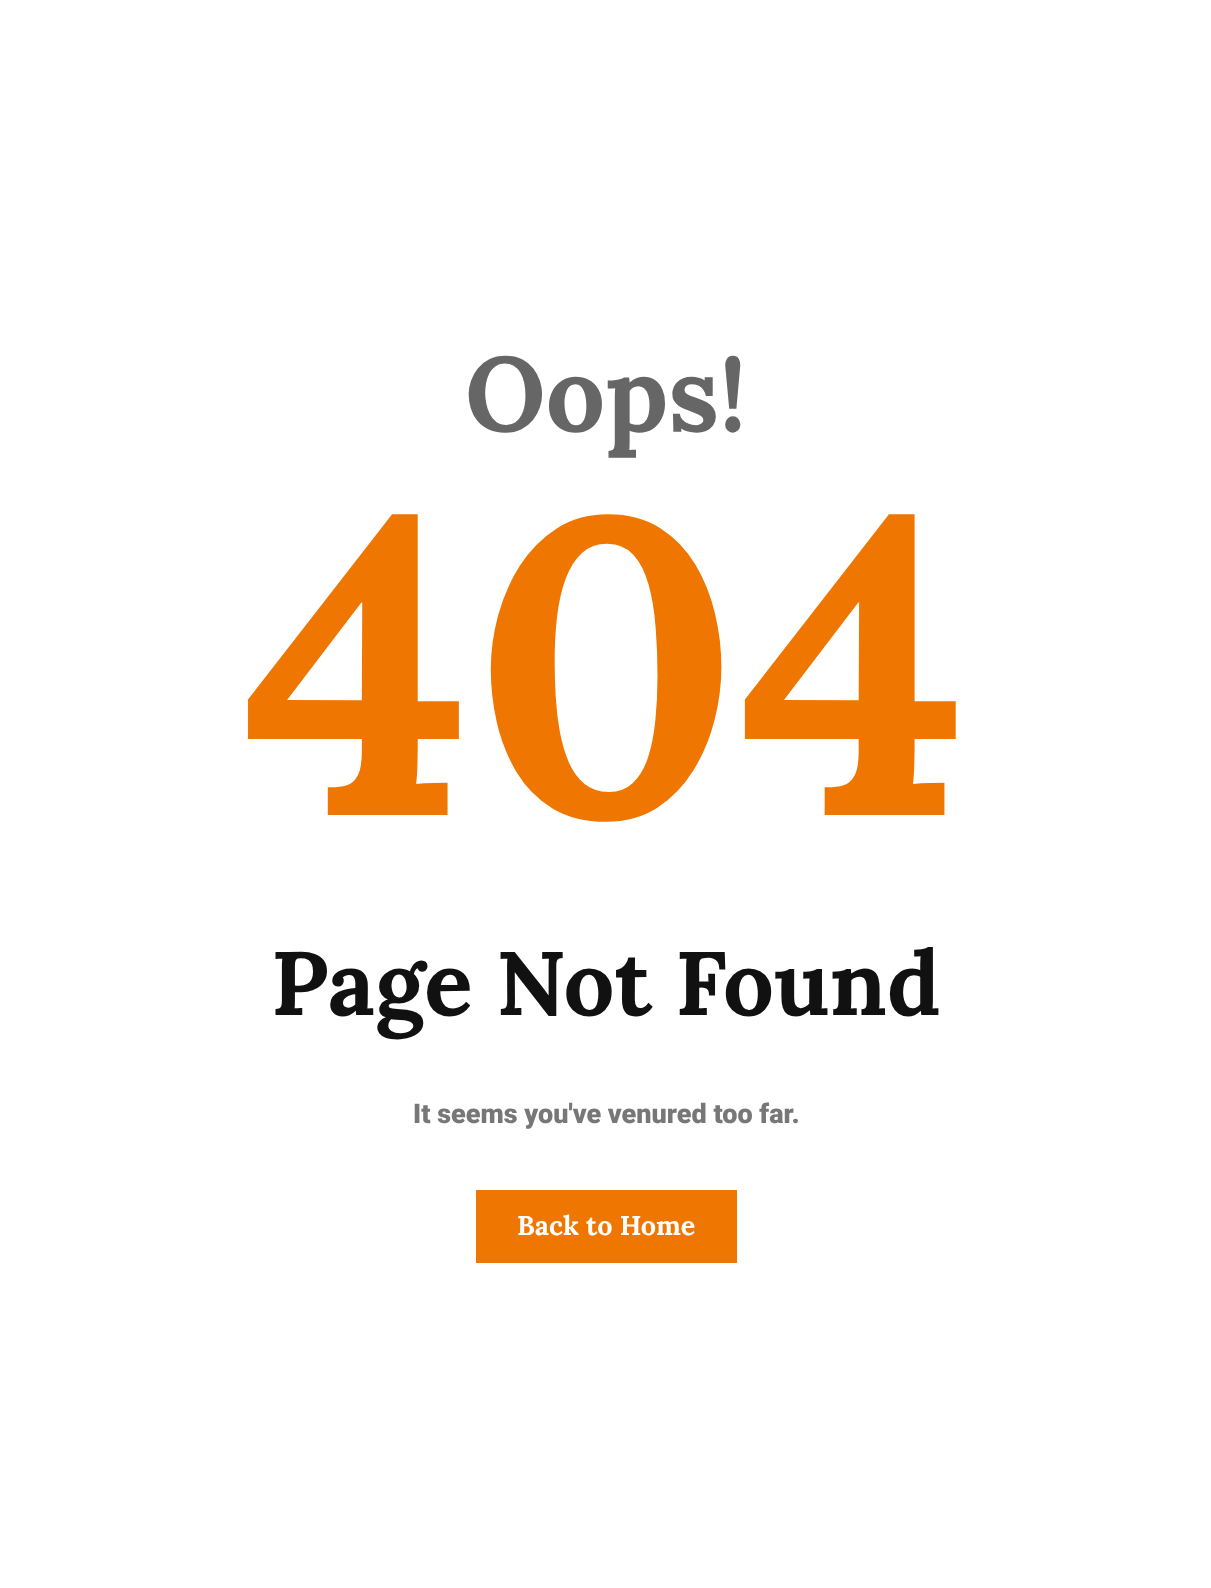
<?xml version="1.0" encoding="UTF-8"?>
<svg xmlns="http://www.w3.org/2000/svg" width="1211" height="1588">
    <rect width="100%" height="100%" fill="#FFFFFF"/>
    <text x="465" y="431" font-family="Lora" font-size="105" font-weight="700" font-style="italic" fill="#666666">Oops!</text>
    <text x="243" y="815" font-family="Lora" font-size="420" font-weight="700" font-style="italic" fill="#EF7701">404</text>
    <text x="271" y="1015" font-family="Lora" font-size="90" font-weight="700" font-style="italic" fill="#111111">Page Not Found</text>
    <text x="413" y="1123" font-family="Roboto" font-size="27" font-weight="900" fill="#777777">It seems you've venured too far.</text>
    <rect x="476" y="1190" width="261" height="73" fill="#EF7701"/>
    <text x="517" y="1235" font-family="Lora" font-size="27" font-weight="700" font-style="italic" fill="#FFFFFF">Back to Home</text>
</svg>
